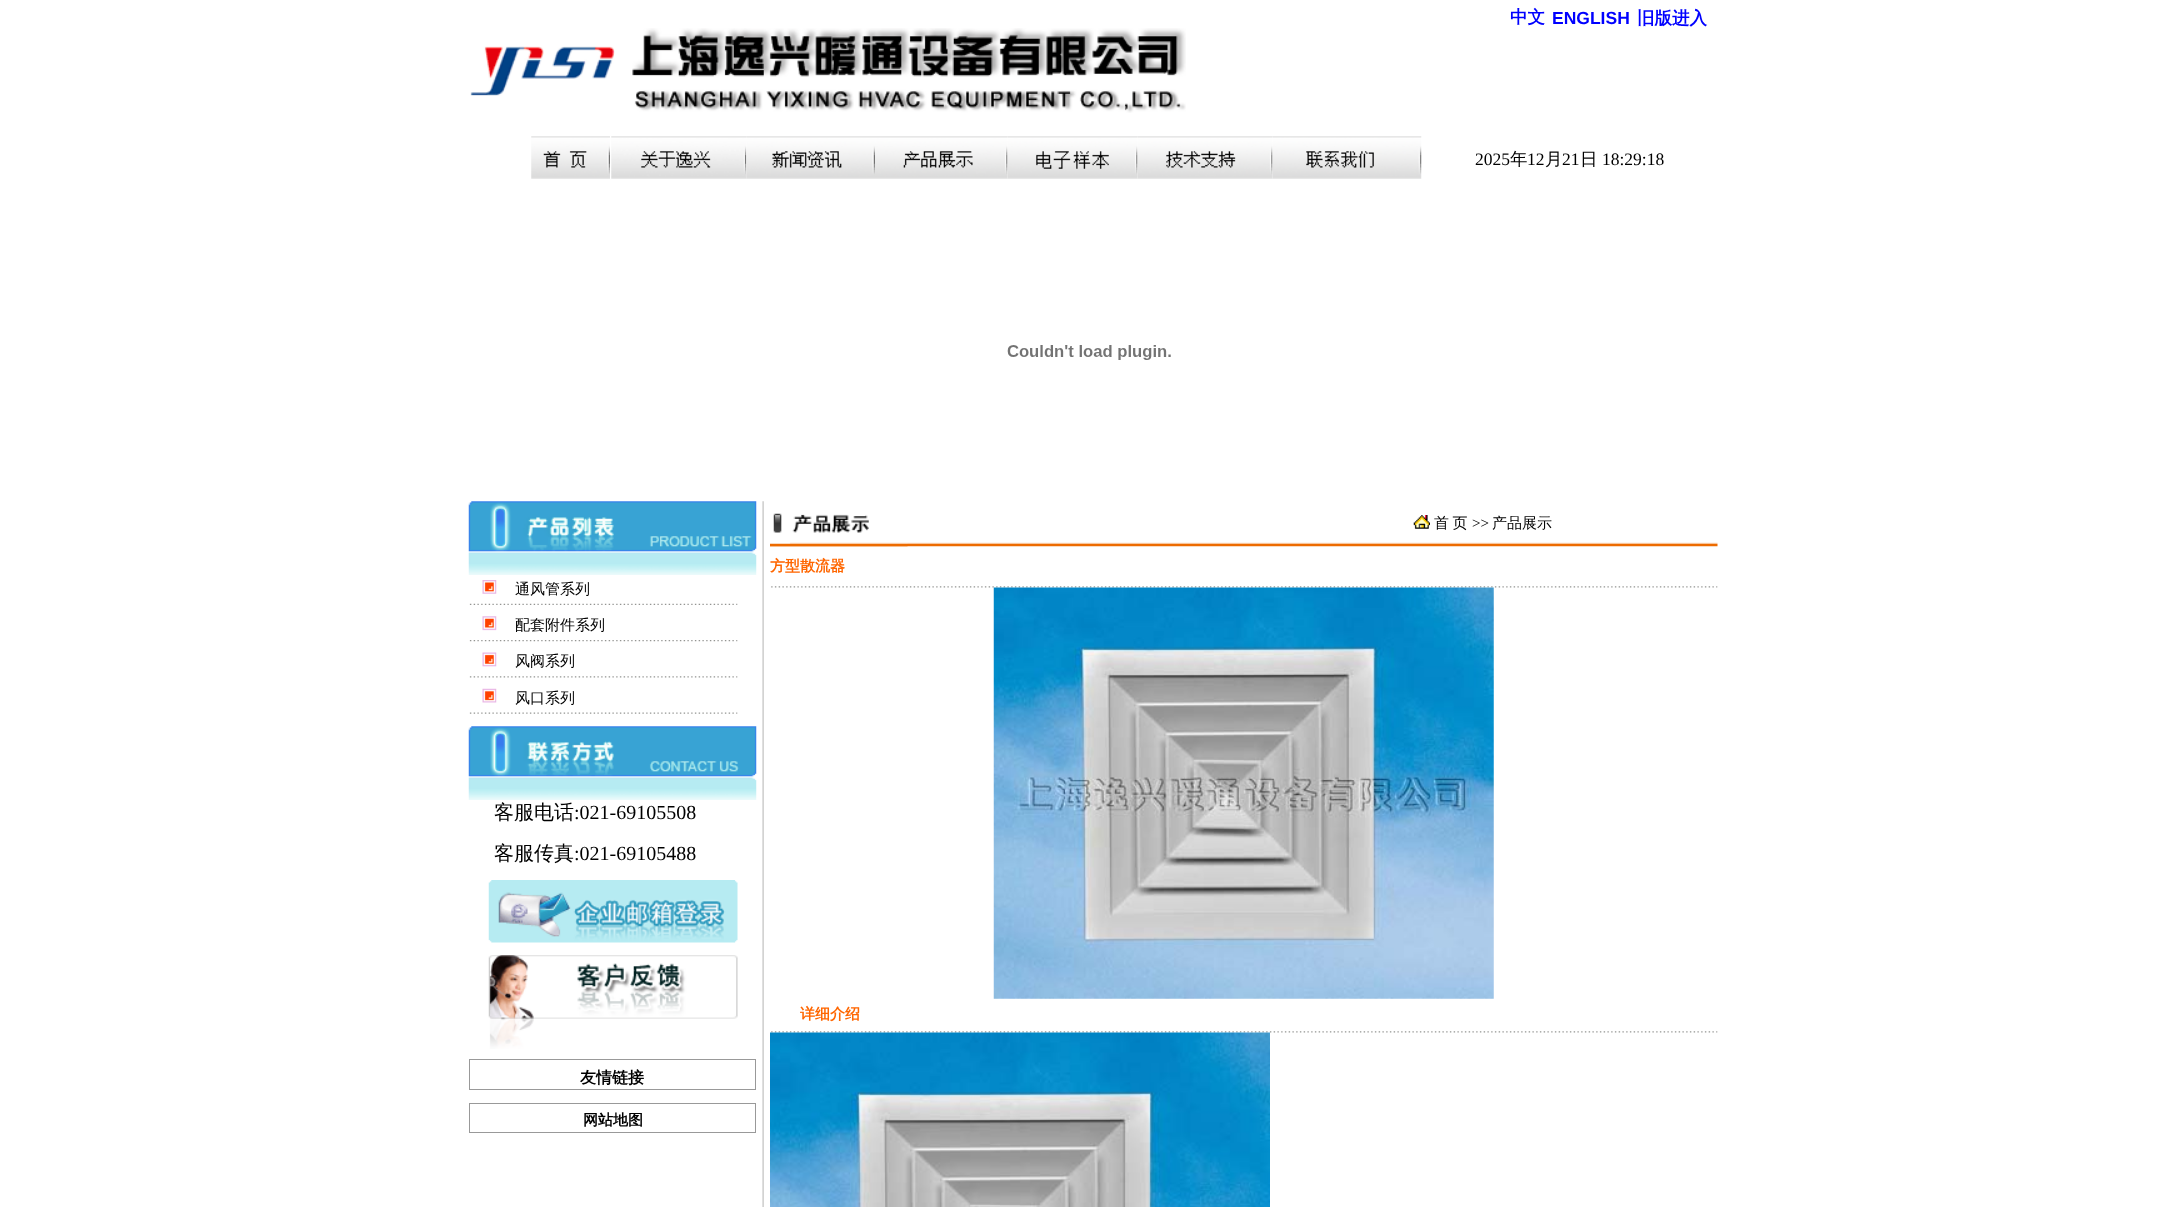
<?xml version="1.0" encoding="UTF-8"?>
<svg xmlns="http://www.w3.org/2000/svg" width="2179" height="1207">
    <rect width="100%" height="100%" fill="#FFFFFF"/>
    <text x="1510" y="23" font-family="WenQuanYi Zen Hei" font-size="17.5" font-weight="700" fill="#0000FF">中文</text>
    <text x="1552" y="24" font-family="Liberation Sans" font-size="17.5" font-weight="700" fill="#0000FF">ENGLISH</text>
    <text x="1637" y="24" font-family="WenQuanYi Zen Hei" font-size="17.5" font-weight="700" fill="#0000FF">旧版进入</text>
    <image x="470" y="46" width="145" height="50" href="img_01.png"/>
    <image x="632" y="28" width="554" height="85" href="img_02.png"/>
    <image x="531" y="136" width="79" height="43" href="img_03.png"/>
    <image x="611" y="136" width="136" height="43" href="img_04.png"/>
    <image x="746" y="136" width="129" height="43" href="img_05.png"/>
    <image x="875" y="136" width="133" height="43" href="img_06.png"/>
    <image x="1007" y="136" width="131" height="43" href="img_07.png"/>
    <image x="1137" y="136" width="136" height="43" href="img_08.png"/>
    <image x="1272" y="136" width="150" height="43" href="img_09.png"/>
    <text x="1475" y="165" font-family="Liberation Serif" font-size="17.5" fill="#000000">2025</text>
    <text x="1510" y="165" font-family="WenQuanYi Zen Hei" font-size="17.5" font-weight="500" fill="#000000">年</text>
    <text x="1527" y="165" font-family="Liberation Serif" font-size="17.5" fill="#000000">12</text>
    <text x="1545" y="165" font-family="WenQuanYi Zen Hei" font-size="17.5" font-weight="500" fill="#000000">月</text>
    <text x="1562" y="165" font-family="Liberation Serif" font-size="17.5" fill="#000000">21</text>
    <text x="1580" y="165" font-family="WenQuanYi Zen Hei" font-size="17.5" font-weight="500" fill="#000000">日</text>
    <text x="1602" y="165" font-family="Liberation Serif" font-size="17.5" fill="#000000">18:29:18</text>
    <image x="1007" y="345" width="164" height="15" href="img_10.png"/>
    <image x="468" y="501" width="289" height="74" href="img_11.png"/>
    <image x="482" y="580" width="15" height="14" href="img_12.png"/>
    <text x="515" y="594" font-family="WenQuanYi Zen Hei" font-size="15" font-weight="500" fill="#000000">通风管系列</text>
    <image x="469" y="603" width="269" height="2" href="img_13.png"/>
    <image x="482" y="616" width="15" height="15" href="img_14.png"/>
    <text x="515" y="630" font-family="WenQuanYi Zen Hei" font-size="15" font-weight="500" fill="#000000">配套附件系列</text>
    <image x="469" y="640" width="269" height="2" href="img_15.png"/>
    <image x="482" y="652" width="15" height="15" href="img_16.png"/>
    <text x="515" y="666" font-family="WenQuanYi Zen Hei" font-size="15" font-weight="500" fill="#000000">风阀系列</text>
    <image x="469" y="676" width="269" height="2" href="img_17.png"/>
    <image x="482" y="688" width="15" height="15" href="img_18.png"/>
    <text x="515" y="703" font-family="WenQuanYi Zen Hei" font-size="15" font-weight="500" fill="#000000">风口系列</text>
    <image x="469" y="712" width="269" height="2" href="img_19.png"/>
    <image x="468" y="726" width="289" height="74" href="img_20.png"/>
    <text x="494" y="819" font-family="WenQuanYi Zen Hei" font-size="20" font-weight="500" fill="#000000">客服电话</text>
    <text x="574" y="819" font-family="Liberation Serif" font-size="20" fill="#000000">:021-69105508</text>
    <text x="494" y="860" font-family="WenQuanYi Zen Hei" font-size="20" font-weight="500" fill="#000000">客服传真</text>
    <text x="574" y="860" font-family="Liberation Serif" font-size="20" fill="#000000">:021-69105488</text>
    <image x="488" y="880" width="250" height="63" href="img_21.png"/>
    <image x="488" y="955" width="250" height="94" href="img_22.png"/>
    <rect x="469.5" y="1059.5" width="286" height="30" fill="none" stroke="#999999"/>
    <text x="580" y="1083" font-family="WenQuanYi Zen Hei" font-size="16" font-weight="700" fill="#000000">友情链接</text>
    <rect x="469.5" y="1103.5" width="286" height="29" fill="none" stroke="#999999"/>
    <text x="583" y="1125" font-family="WenQuanYi Zen Hei" font-size="15" font-weight="700" fill="#000000">网站地图</text>
    <image x="762" y="501" width="2" height="706" href="img_23.png"/>
    <image x="770" y="542" width="948" height="5" href="img_24.png"/>
    <image x="770" y="513" width="138" height="34" href="img_25.png"/>
    <image x="1413" y="515" width="17" height="14" href="img_26.png"/>
    <text x="1434" y="528" word-spacing="-1" font-family="WenQuanYi Zen Hei" font-size="15" font-weight="500" fill="#000000">首 页</text>
    <text x="1472" y="528" font-family="Liberation Serif" font-size="15" fill="#000000">&gt;&gt;</text>
    <text x="1492" y="528" font-family="WenQuanYi Zen Hei" font-size="15" font-weight="500" fill="#000000">产品展示</text>
    <text x="770" y="571" font-family="WenQuanYi Zen Hei" font-size="15" font-weight="700" fill="#FF6600">方型散流器</text>
    <image x="771" y="586" width="947" height="2" href="img_27.png"/>
    <image x="993" y="587" width="501" height="412" href="img_28.png"/>
    <text x="800" y="1019" font-family="WenQuanYi Zen Hei" font-size="15" font-weight="700" fill="#FF6600">详细介绍</text>
    <image x="771" y="1031" width="947" height="2" href="img_27.png"/>
    <image x="770" y="1032" width="500" height="175" href="img_29.png"/>
</svg>
